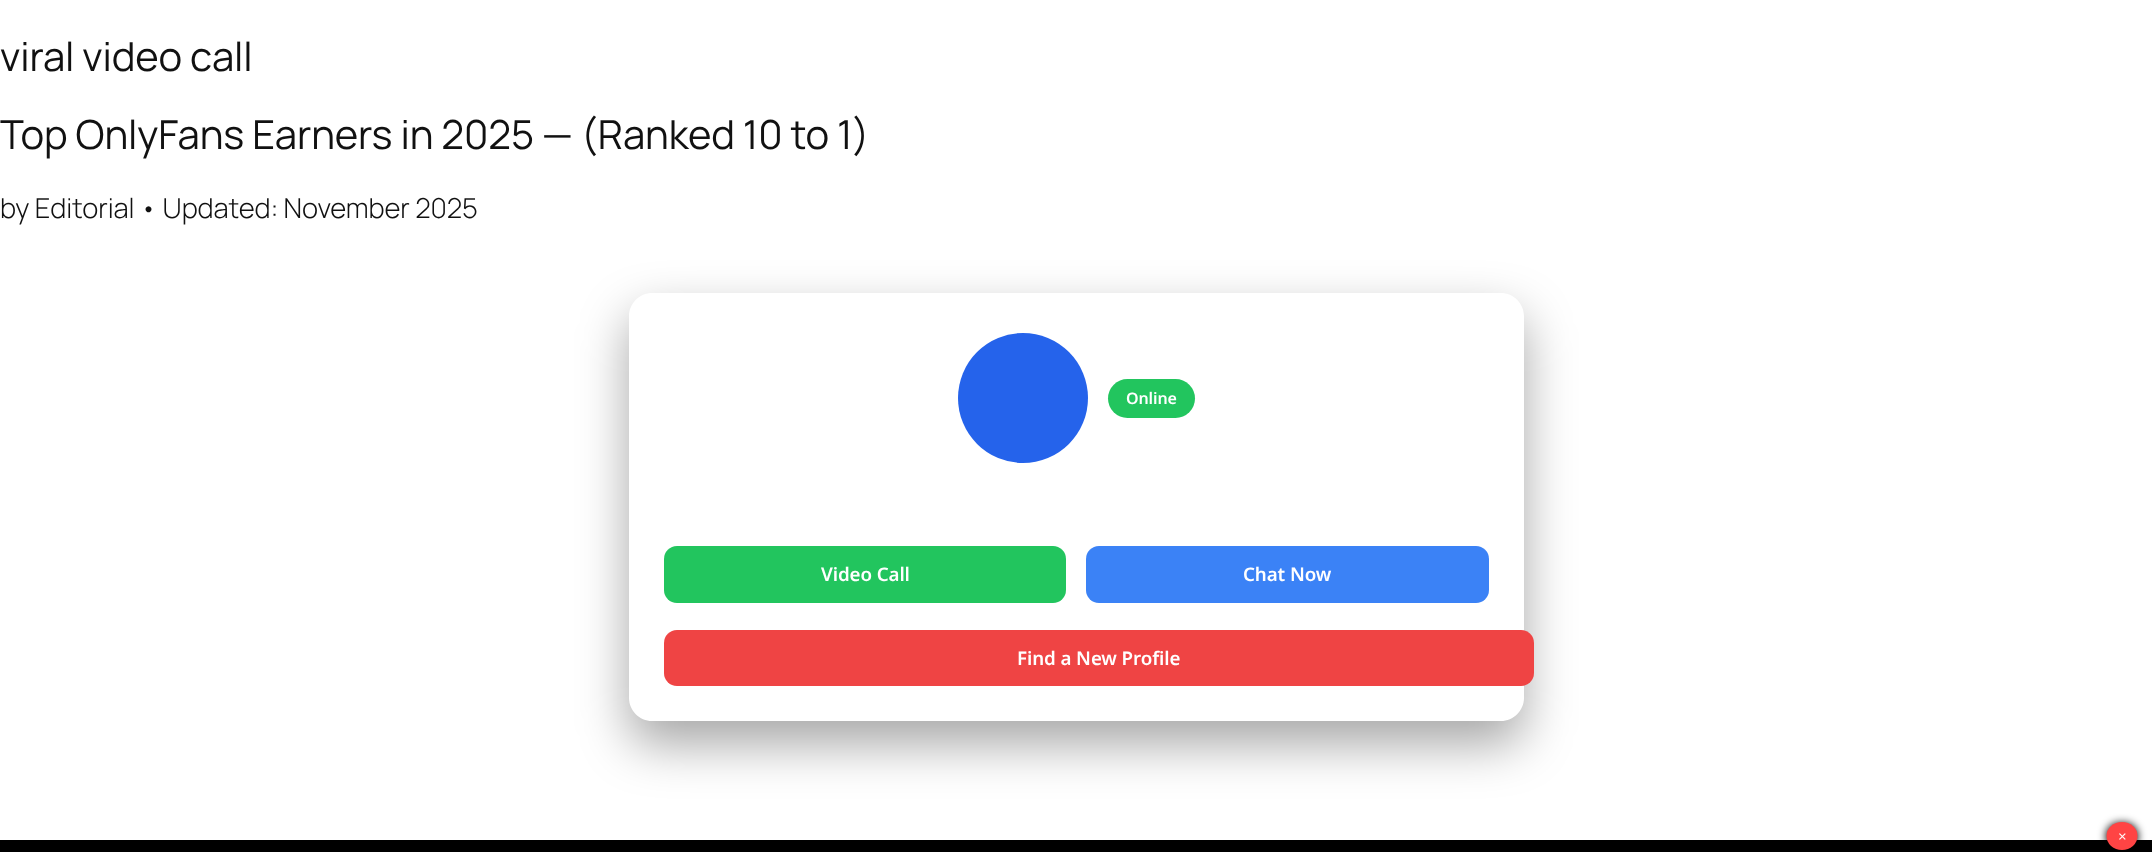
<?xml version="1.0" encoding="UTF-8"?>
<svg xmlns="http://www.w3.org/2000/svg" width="2152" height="852">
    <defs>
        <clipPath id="clip1"><path d="M 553 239 H 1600 V 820 H 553 Z M 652 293 H 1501 C 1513.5 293 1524 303.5 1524 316 V 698 C 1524 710.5 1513.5 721 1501 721 H 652 C 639.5 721 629 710.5 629 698 V 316 C 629 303.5 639.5 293 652 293 Z" clip-rule="evenodd"/></clipPath>
        <filter id="blur1" x="-50%" y="-200%" width="200%" height="500%"><feGaussianBlur stdDeviation="25"/></filter>
        <filter id="blur2" x="-50%" y="-200%" width="200%" height="500%"><feGaussianBlur stdDeviation="4"/></filter>
    </defs>
    <rect width="100%" height="100%" fill="#FFFFFF"/>
    <text font-family="Manrope" font-size="40" letter-spacing="-0.1" fill="#111111">
        <tspan x="0" y="71">viral video call</tspan>
        <tspan x="0" y="149">Top OnlyFans Earners in 2025 — (Ranked 10 to 1)</tspan>
    </text>
    <text x="0" y="218" font-family="Manrope" font-size="27.5" font-weight="300" letter-spacing="-0.1" fill="#111111">by Editorial • Updated: November 2025</text>
    <g clip-path="url(#clip1)">
        <rect x="629" y="315" width="895" height="429" rx="23" fill="#000000" fill-opacity="0.35" filter="url(#blur1)"/>
    </g>
    <circle cx="1023" cy="398" r="65" fill="#2563EB"/>
    <rect x="1108" y="379" width="87" height="39" rx="19.5" fill="#22C55E"/>
    <text x="1126" y="404" font-family="Noto Sans" font-size="16" font-weight="600" letter-spacing="-0.1" fill="#FFFFFF">Online</text>
    <rect x="664" y="546" width="402" height="57" rx="13" fill="#22C55E"/>
    <text x="821" y="581" font-family="Noto Sans" font-size="18.75" font-weight="600" letter-spacing="-0.1" fill="#FFFFFF">Video Call</text>
    <rect x="1086" y="546" width="403" height="57" rx="13" fill="#3B82F6"/>
    <text x="1243" y="581" font-family="Noto Sans" font-size="18.75" font-weight="600" letter-spacing="-0.1" fill="#FFFFFF">Chat Now</text>
    <rect x="664" y="630" width="870" height="56" rx="13" fill="#EF4444"/>
    <text x="1017" y="665" font-family="Noto Sans" font-size="18.75" font-weight="600" letter-spacing="-0.1" fill="#FFFFFF">Find a New Profile</text>
    <rect x="0" y="840" width="2152" height="12" fill="#000000"/>
    <rect x="2106" y="823" width="32" height="27" rx="13.5" fill="#000000" filter="url(#blur2)"/>
    <ellipse cx="2122" cy="836" rx="15.5" ry="14" fill="#FF4444"/>
    <text x="2118" y="843" font-family="Manrope" font-size="18" font-weight="300" letter-spacing="-0.1" fill="#FFFFFF">×</text>
</svg>
